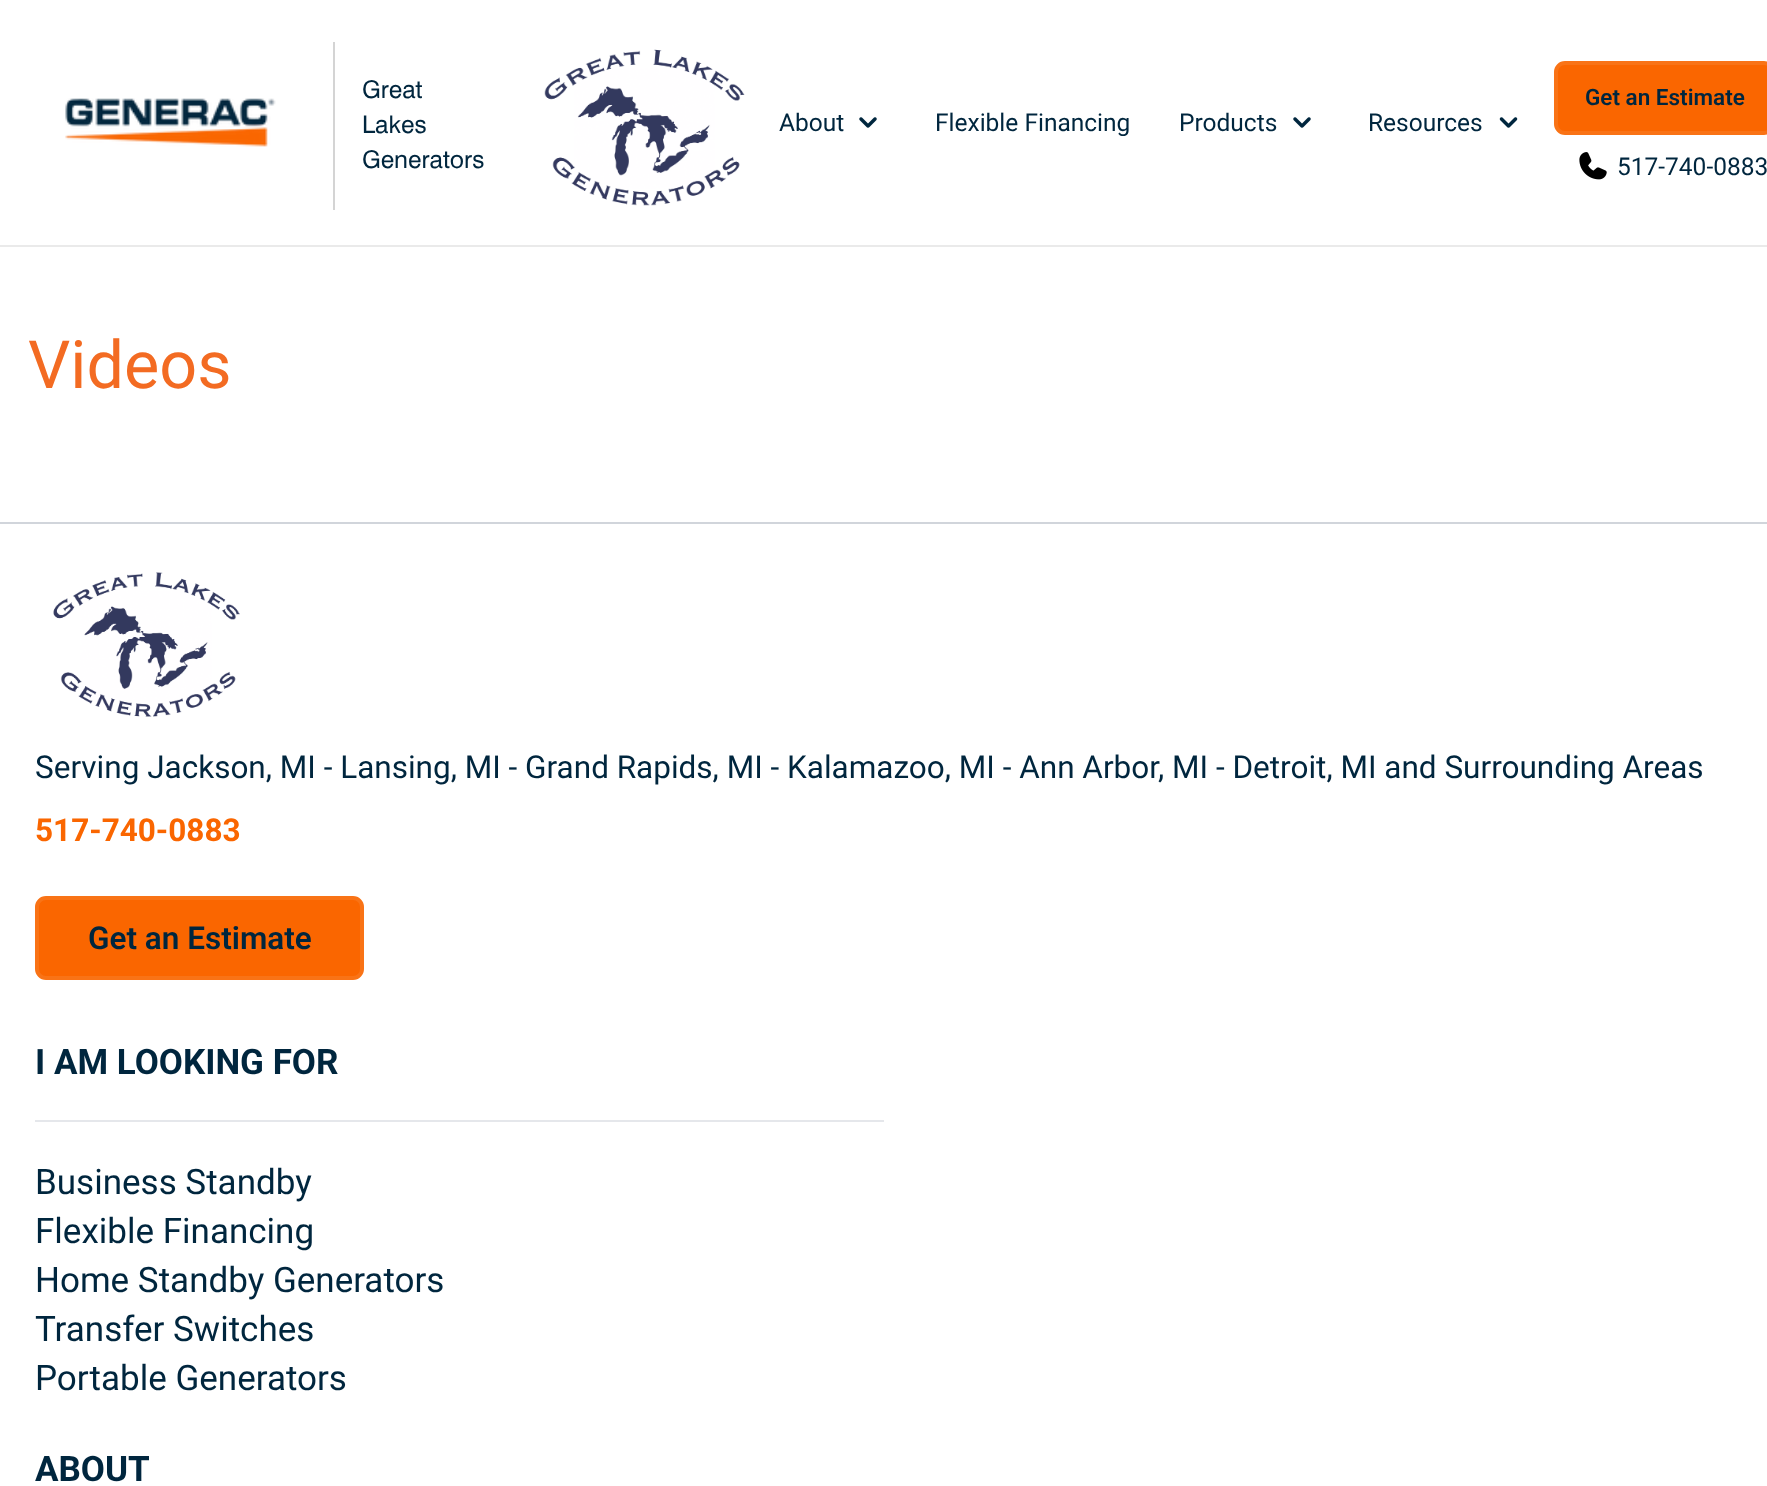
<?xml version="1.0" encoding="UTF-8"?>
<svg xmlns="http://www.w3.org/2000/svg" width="1767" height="1486">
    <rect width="100%" height="100%" fill="#FFFFFF"/>
    <rect x="0" y="245" width="1767" height="2" fill="#EAEAEA"/>
    <image x="65" y="98" width="211" height="49" href="img_01.png"/>
    <rect x="333" y="42" width="2" height="168" fill="#D4D4D4"/>
    <text font-family="'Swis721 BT'" font-size="24.5" fill="#00263E">
        <tspan x="362" y="98">Great</tspan>
        <tspan x="362" y="133">Lakes</tspan>
        <tspan x="362" y="168">Generators</tspan>
    </text>
    <image x="544" y="49" width="201" height="157" href="img_02.png"/>
    <text x="779" y="131" font-family="Roboto" font-size="24.5" fill="#00263E">About</text>
    <image x="859" y="117" width="18" height="11" href="img_03.png"/>
    <text x="935" y="131" font-family="Roboto" font-size="24.5" fill="#00263E">Flexible Financing</text>
    <text x="1179" y="131" font-family="Roboto" font-size="24.5" fill="#00263E">Products</text>
    <image x="1293" y="117" width="18" height="11" href="img_03.png"/>
    <text x="1368" y="131" font-family="Roboto" font-size="24.5" fill="#00263E">Resources</text>
    <image x="1499" y="117" width="19" height="11" href="img_04.png"/>
    <rect x="1556" y="63" width="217" height="70" rx="9" fill="#FA6600" stroke="#F97316" stroke-width="4"/>
    <text x="1585" y="105" font-family="Roboto" font-size="22.5" font-weight="600" fill="#00263E">Get an Estimate</text>
    <image x="1579" y="152" width="28" height="28" href="img_05.png"/>
    <text x="1617" y="175" font-family="Roboto" font-size="24.5" fill="#00263E">517-740-0883</text>
    <text x="28" y="388" font-family="Roboto" font-size="66.5" fill="#F36B22">Videos</text>
    <rect x="0" y="522" width="1767" height="2" fill="#D1D5DB"/>
    <image x="53" y="572" width="187" height="145" href="img_06.png"/>
    <text x="35" y="778" font-family="Roboto" font-size="31.5" fill="#00263E">Serving Jackson, MI - Lansing, MI - Grand Rapids, MI - Kalamazoo, MI - Ann Arbor, MI - Detroit, MI and Surrounding Areas</text>
    <text x="35" y="841" font-family="Roboto" font-size="31.5" font-weight="700" fill="#FA6600">517-740-0883</text>
    <rect x="37" y="898" width="325" height="80" rx="9" fill="#FA6600" stroke="#F97316" stroke-width="4"/>
    <text x="88" y="949" font-family="Roboto" font-size="31.5" font-weight="600" fill="#00263E">Get an Estimate</text>
    <text x="35" y="1074" font-family="Roboto" font-size="35" font-weight="700" fill="#00263E">I AM LOOKING FOR</text>
    <rect x="35" y="1120" width="849" height="2" fill="#E5E7EB"/>
    <text font-family="Roboto" font-size="35" fill="#00263E">
        <tspan x="35" y="1194">Business Standby</tspan>
        <tspan x="35" y="1243">Flexible Financing</tspan>
        <tspan x="35" y="1292">Home Standby Generators</tspan>
        <tspan x="35" y="1341">Transfer Switches</tspan>
        <tspan x="35" y="1390">Portable Generators</tspan>
    </text>
    <text x="35" y="1481" font-family="Roboto" font-size="35" font-weight="700" fill="#00263E">ABOUT</text>
</svg>
